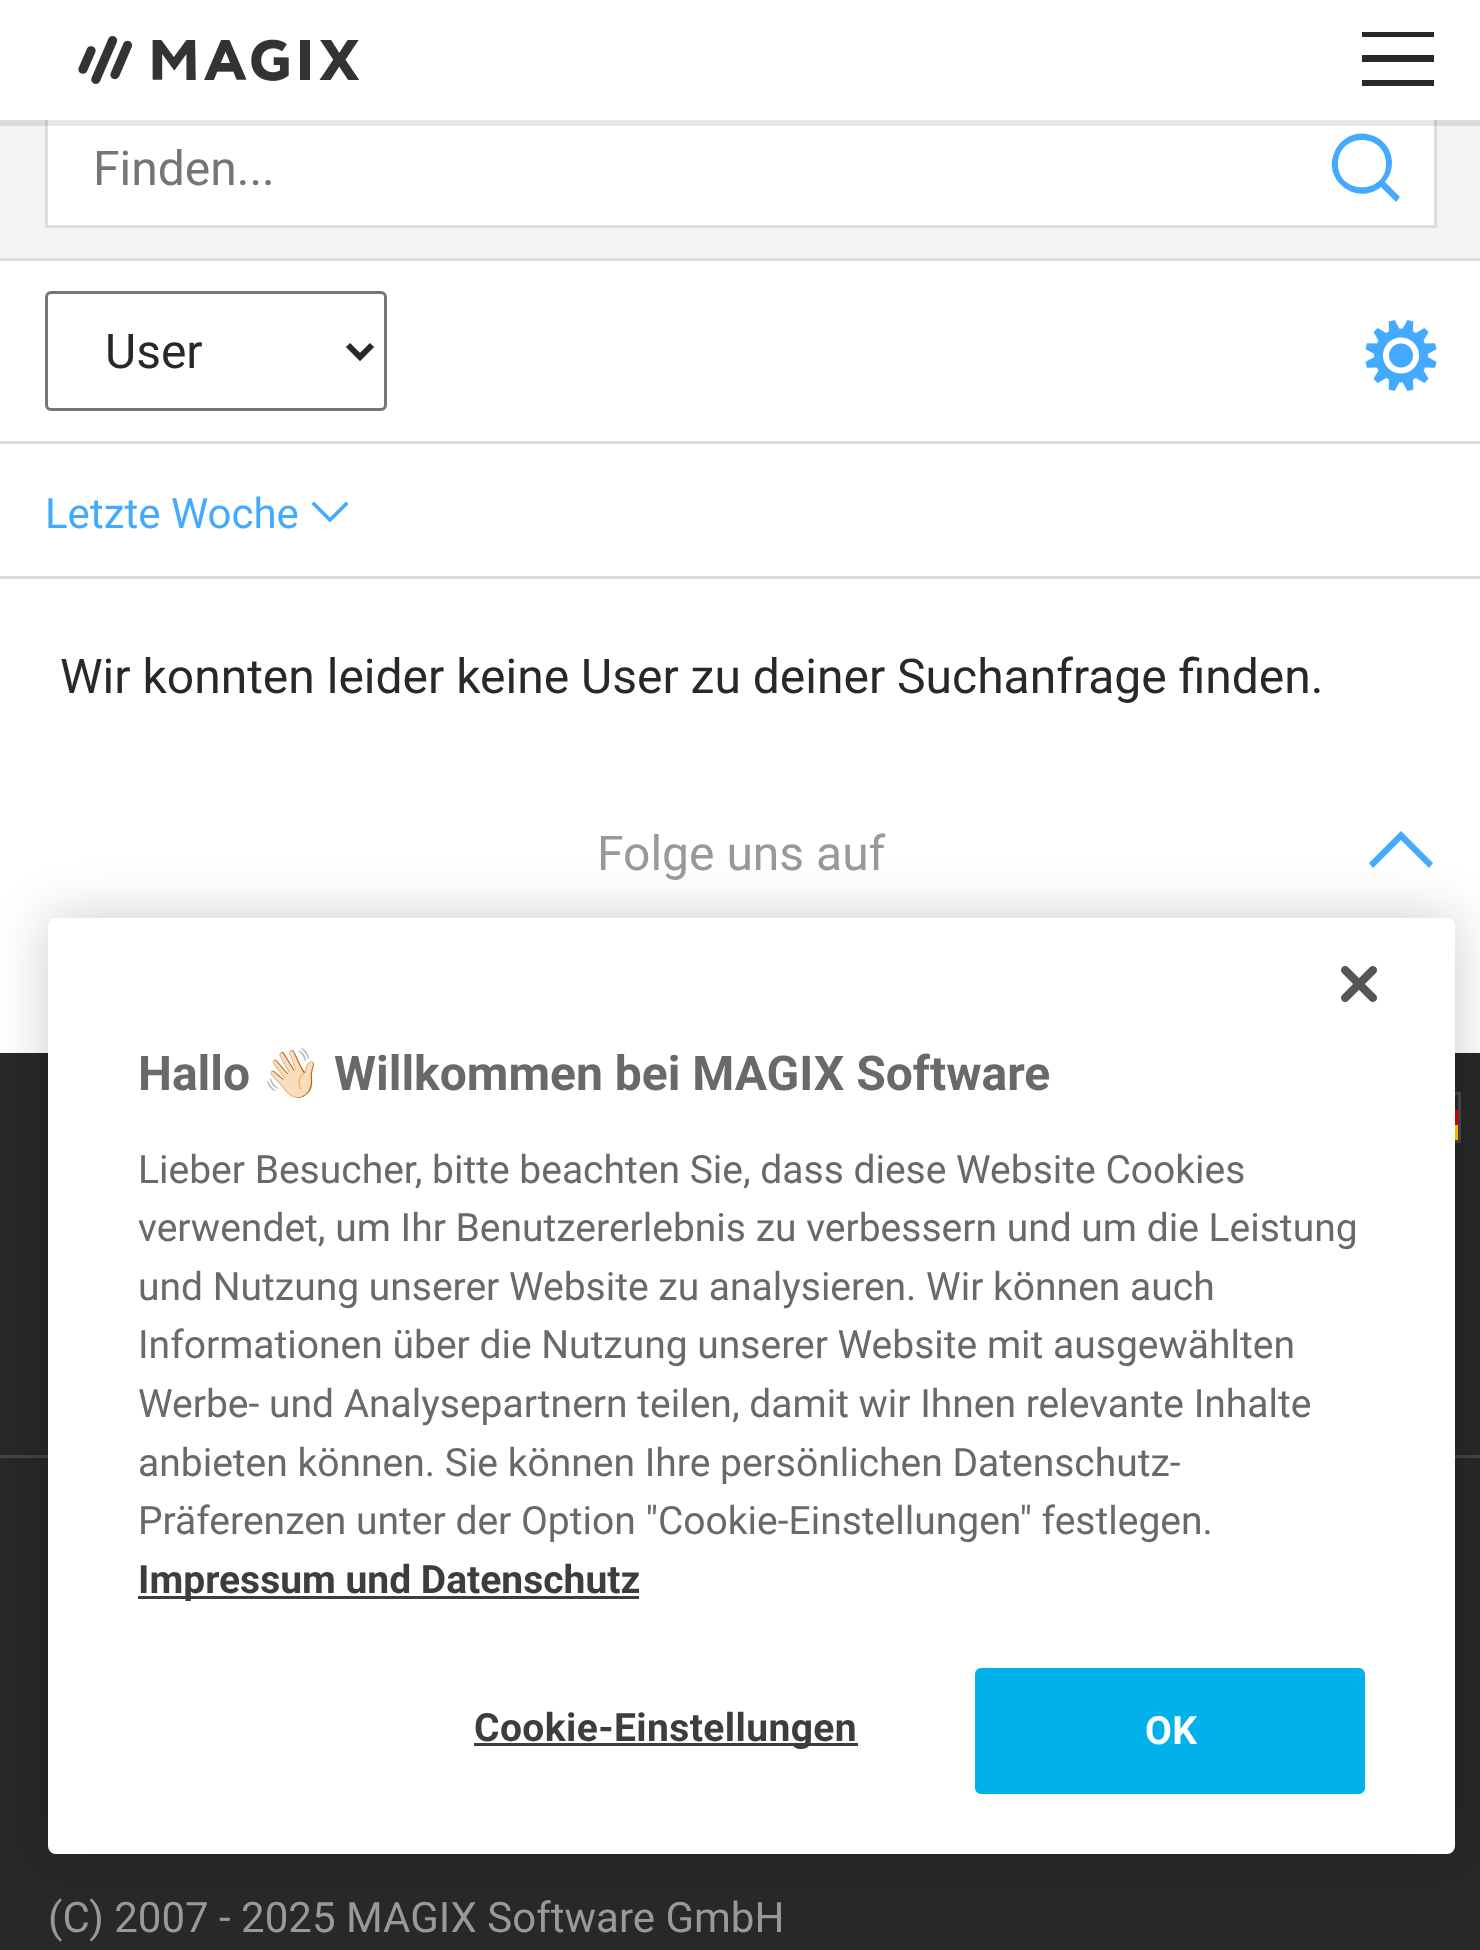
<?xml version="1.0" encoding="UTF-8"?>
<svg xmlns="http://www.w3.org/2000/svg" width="1480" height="1950">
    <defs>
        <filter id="blur1" x="-50%" y="-200%" width="200%" height="500%"><feGaussianBlur stdDeviation="27"/></filter>
    </defs>
    <rect width="100%" height="100%" fill="#FFFFFF"/>
    <image x="78" y="36" width="282" height="48" href="img_01.png"/>
    <path d="M 1362 32 H 1434 V 37 H 1362 Z M 1362 55 H 1434 V 62 H 1362 Z M 1362 80 H 1434 V 86 H 1362 Z" fill="#282828"/>
    <rect x="0" y="126" width="1480" height="132" fill="#F3F3F3"/>
    <rect x="0" y="120" width="1480" height="6" fill="#DBDBDB"/>
    <rect x="0" y="258" width="1480" height="3" fill="#DDDDDD"/>
    <rect x="48" y="126" width="1386" height="99" fill="#FFFFFF"/>
    <rect x="45" y="120" width="1392" height="6" fill="#E6E6E6"/>
    <rect x="45" y="225" width="1260" height="3" fill="#DDDDDD"/>
    <rect x="45" y="126" width="3" height="102" fill="#DDDDDD"/>
    <rect x="45" y="120" width="3" height="6" fill="#C7C7C7"/>
    <text x="93" y="185" font-family="Roboto" font-size="48" fill="#757575">Finden...</text>
    <rect x="1434" y="126" width="3" height="102" fill="#DDDDDD"/>
    <rect x="1434" y="120" width="3" height="6" fill="#C7C7C7"/>
    <rect x="1302" y="225" width="135" height="3" fill="#DDDDDD"/>
    <path d="M 1385 182 C 1397 168 1393 147 1378 138 C 1369 133 1359 132 1350 136 C 1344 139 1338 144 1335 151 C 1321 179 1356 207 1381 187 L 1396 202 L 1400 197 Z M 1338 164 C 1338 132 1386 132 1386 164 C 1386 195 1338 195 1338 164 Z" fill="#44AAFF"/>
    <rect x="0" y="441" width="1480" height="3" fill="#DDDDDD"/>
    <rect x="46.5" y="292.5" width="339" height="117" rx="4.5" fill="none" stroke="#767676" stroke-width="3"/>
    <path d="M 348 345 L 360 357 L 372 345" fill="none" stroke="#282828" stroke-width="6"/>
    <text x="105" y="368" font-family="Roboto" font-size="48" fill="#282828">User</text>
    <image x="1365" y="320" width="72" height="71" href="img_02.png"/>
    <rect x="0" y="576" width="1480" height="3" fill="#DDDDDD"/>
    <text x="45" y="528" font-family="Roboto" font-size="42" fill="#44AAFF">Letzte Woche</text>
    <path d="M 348.5 504 L 346 501.5 L 330 517.5 L 314 501.5 L 311.5 504 L 330 522.5 Z" fill="#44AAFF"/>
    <text x="60" y="693" font-family="Roboto" font-size="48" fill="#282828">Wir konnten leider keine User zu deiner Suchanfrage finden.</text>
    <path d="M 1369 863 L 1373 868 L 1401 840 L 1429 868 L 1433 863 L 1401 831 Z" fill="#44AAFF"/>
    <text x="597" y="870" font-family="Roboto" font-size="48" fill="#999999">Folge uns auf</text>
    <rect x="0" y="1053" width="1480" height="897" fill="#282828"/>
    <rect x="0" y="1455" width="1480" height="3" fill="#444444"/>
    <rect x="1455" y="1092" width="6" height="51" fill="#484848"/>
    <rect x="1455" y="1095" width="3" height="15" fill="#282828"/>
    <rect x="1455" y="1110" width="3" height="15" fill="#DD0000"/>
    <rect x="1455" y="1125" width="3" height="15" fill="#FFCE00"/>
    <text x="48" y="1932" font-family="Roboto" font-size="42" fill="#999999">(C) 2007 - 2025 MAGIX Software GmbH</text>
    <rect x="48" y="918" width="1407" height="936" rx="8" fill="#000000" fill-opacity="0.2" filter="url(#blur1)"/>
    <rect x="48" y="918" width="1407" height="936" rx="8" fill="#FFFFFF"/>
    <image x="1341" y="966" width="36" height="36" href="img_03.png"/>
    <text x="138" y="1090" font-family="Roboto" font-size="48" font-weight="700" fill="#696969">Hallo</text>
    <text x="262" y="1090" font-family="Noto Color Emoji" font-size="48" font-weight="700" fill="#696969">👋🏻</text>
    <text x="334" y="1090" font-family="Roboto" font-size="48" font-weight="700" fill="#696969">Willkommen bei MAGIX Software</text>
    <text font-family="Roboto" font-size="39" fill="#696969">
        <tspan x="138" y="1183">Lieber Besucher, bitte beachten Sie, dass diese Website Cookies</tspan>
        <tspan x="138" y="1241">verwendet, um Ihr Benutzererlebnis zu verbessern und um die Leistung</tspan>
        <tspan x="138" y="1300">und Nutzung unserer Website zu analysieren. Wir können auch</tspan>
        <tspan x="138" y="1358">Informationen über die Nutzung unserer Website mit ausgewählten</tspan>
        <tspan x="138" y="1417">Werbe- und Analysepartnern teilen, damit wir Ihnen relevante Inhalte</tspan>
        <tspan x="138" y="1476">anbieten können. Sie können Ihre persönlichen Datenschutz-</tspan>
        <tspan x="138" y="1534">Präferenzen unter der Option "Cookie-Einstellungen" festlegen.</tspan>
    </text>
    <rect x="138" y="1596" width="501" height="3" fill="#3D3D3D"/>
    <text x="138" y="1593" font-family="Roboto" font-size="39" font-weight="700" fill="#3D3D3D">Impressum und Datenschutz</text>
    <rect x="474" y="1743" width="384" height="3" fill="#3D3D3D"/>
    <text x="474" y="1741" font-family="Roboto" font-size="39" font-weight="700" letter-spacing="0.4" fill="#3D3D3D">Cookie-Einstellungen</text>
    <rect x="976.5" y="1669.5" width="387" height="123" rx="4.5" fill="#00B1EC" stroke="#00B1EC" stroke-width="3"/>
    <text x="1145" y="1744" font-family="Roboto" font-size="39" font-weight="700" letter-spacing="0.4" fill="#FFFFFF">OK</text>
</svg>
